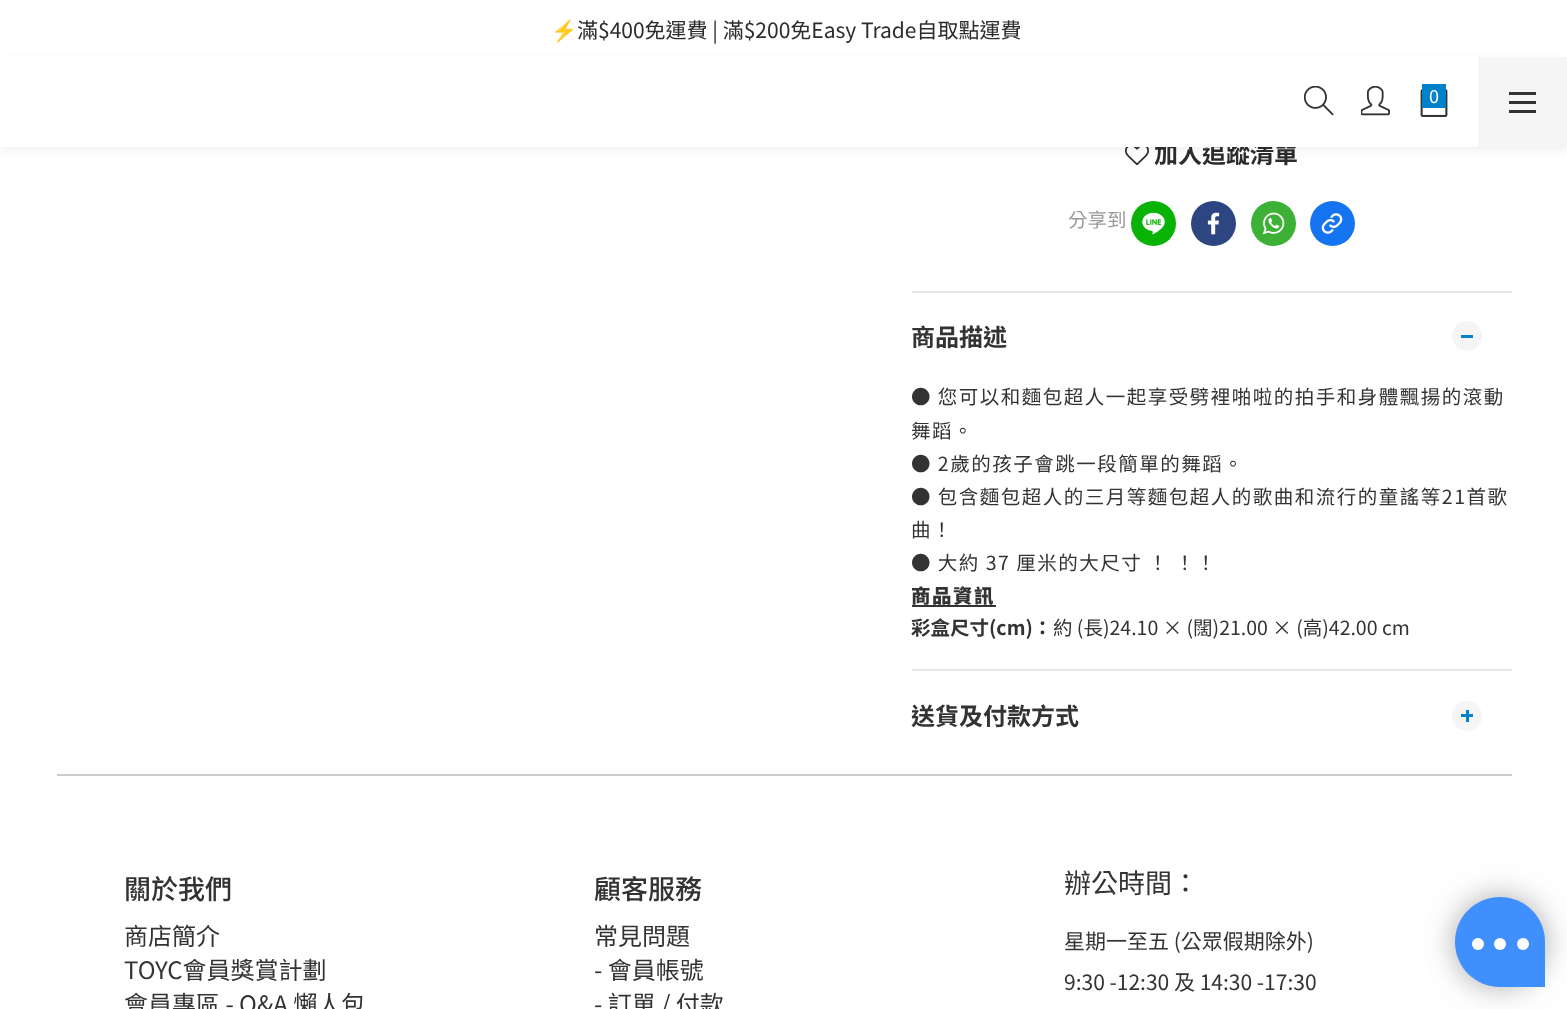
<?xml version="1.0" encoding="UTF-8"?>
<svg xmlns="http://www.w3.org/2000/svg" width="1567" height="1009">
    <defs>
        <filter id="blur1" x="-50%" y="-200%" width="200%" height="500%"><feGaussianBlur stdDeviation="4.5"/></filter>
        <filter id="blur2" x="-50%" y="-200%" width="200%" height="500%"><feGaussianBlur stdDeviation="15"/></filter>
    </defs>
    <rect width="100%" height="100%" fill="#FFFFFF"/>
    <text x="551" y="38" font-family="Noto Color Emoji" font-size="21" fill="#2C2C2C">⚡</text>
    <text x="577" y="38" font-family="Noto Sans TC" font-size="21" fill="#2C2C2C">滿$400免運費 | 滿$200免Easy Trade自取點運費</text>
    <image x="1125" y="147" width="24" height="19" href="img_04.png"/>
    <rect x="0" y="60" width="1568" height="90" fill="#000000" fill-opacity="0.06" filter="url(#blur1)"/>
    <text x="1154" y="163" font-family="Noto Sans TC" font-size="24" font-weight="700" fill="#2C2C2C">加入追蹤清單</text>
    <rect x="0" y="57" width="1478" height="90" fill="#FFFFFF"/>
    <image x="1304" y="86" width="30" height="30" href="img_01.png"/>
    <image x="1361" y="86" width="29" height="30" href="img_02.png"/>
    <image x="1420" y="89" width="28" height="28" href="img_03.png"/>
    <rect x="1422" y="84" width="24" height="24" fill="#0082CA"/>
    <text x="1429" y="103" font-family="Noto Sans TC" font-size="18" fill="#FFFFFF">0</text>
    <rect x="1478" y="57" width="89" height="89" fill="#F5F5F5"/>
    <rect x="1509" y="101" width="27" height="3" fill="#333333"/>
    <rect x="1509" y="92" width="27" height="3" fill="#333333"/>
    <rect x="1509" y="110" width="27" height="3" fill="#333333"/>
    <text x="1068" y="227" font-family="Noto Sans TC" font-size="19.5" fill="#999999">分享到</text>
    <circle cx="1153.5" cy="223.5" r="22.5" fill="#09B305"/>
    <image x="1142" y="212" width="23" height="23" href="img_05.png"/>
    <circle cx="1213.5" cy="223.5" r="22.5" fill="#2D4682"/>
    <image x="1207" y="212" width="13" height="23" href="img_06.png"/>
    <circle cx="1273.5" cy="223.5" r="22.5" fill="#3CB136"/>
    <image x="1262" y="212" width="23" height="23" href="img_07.png"/>
    <circle cx="1332.5" cy="223.5" r="22.5" fill="#1575F0"/>
    <image x="1321" y="213" width="22" height="21" href="img_08.png"/>
    <rect x="912" y="291" width="600" height="2" fill="#E6E6E6"/>
    <text x="911" y="346" font-family="Noto Sans TC" font-size="24" font-weight="700" fill="#333333">商品描述</text>
    <circle cx="1467" cy="336" r="15" fill="#F5F5F5"/>
    <rect x="1461" y="335" width="12" height="3" fill="#0082CA"/>
    <text font-family="Noto Sans TC" font-size="19.5" letter-spacing="1.5" fill="#333333">
        <tspan x="911" y="404">● 您可以和麵包超人一起享受劈裡啪啦的拍手和身體飄揚的滾動</tspan>
        <tspan x="911" y="438">舞蹈。</tspan>
        <tspan x="911" y="471">● 2歲的孩子會跳一段簡單的舞蹈。</tspan>
        <tspan x="911" y="504">● 包含麵包超人的三月等麵包超人的歌曲和流行的童謠等21首歌</tspan>
        <tspan x="911" y="537">曲！</tspan>
        <tspan x="911" y="570">● 大約 37 厘米的大尺寸 ！ ！！</tspan>
    </text>
    <text x="911" y="603" font-family="Noto Sans TC" font-size="19.5" font-weight="900" letter-spacing="1.5" fill="#333333">商品資訊</text>
    <rect x="912" y="605" width="84" height="2" fill="#333333"/>
    <text x="911" y="635" font-family="Noto Sans TC" font-size="19.5" font-weight="700" fill="#333333">彩盒尺寸(cm)：</text>
    <text x="1053" y="635" font-family="Noto Sans TC" font-size="19.5" fill="#333333">約 (長)24.10 × (闊)21.00 × (高)42.00 cm</text>
    <rect x="912" y="669" width="600" height="2" fill="#E6E6E6"/>
    <text x="911" y="725" font-family="Noto Sans TC" font-size="24" font-weight="700" fill="#333333">送貨及付款方式</text>
    <circle cx="1467" cy="716" r="15" fill="#F5F5F5"/>
    <rect x="1461" y="714" width="12" height="3" fill="#0082CA"/>
    <rect x="1466" y="710" width="3" height="12" fill="#0082CA"/>
    <rect x="57" y="774" width="1455" height="2" fill="#CCCCCC"/>
    <text x="124" y="899" font-family="Noto Sans TC" font-size="27" font-weight="500" fill="#333333">關於我們</text>
    <text font-family="Noto Sans TC" font-size="24" fill="#333333">
        <tspan x="124" y="945">商店簡介</tspan>
        <tspan x="124" y="979">TOYC會員獎賞計劃</tspan>
        <tspan x="124" y="1013">會員專區 - Q&amp;A 懶人包</tspan>
    </text>
    <text x="594" y="899" font-family="Noto Sans TC" font-size="27" font-weight="500" fill="#333333">顧客服務</text>
    <text font-family="Noto Sans TC" font-size="24" fill="#333333">
        <tspan x="594" y="945">常見問題</tspan>
        <tspan x="594" y="979">- 會員帳號</tspan>
        <tspan x="594" y="1013">- 訂單 / 付款</tspan>
    </text>
    <text x="1064" y="893" font-family="Noto Sans TC" font-size="27" fill="#333333">辦公時間：</text>
    <text font-family="Noto Sans TC" font-size="21" fill="#333333">
        <tspan x="1064" y="949">星期一至五 (公眾假期除外)</tspan>
        <tspan x="1064" y="990">9:30 -12:30 及 14:30 -17:30</tspan>
    </text>
    <rect x="1455" y="897" width="90" height="90" rx="45" fill="#777777" fill-opacity="0.64" filter="url(#blur2)"/>
    <path d="M 1500 897 C 1525 897 1545 917 1545 942 V 987 H 1500 C 1475 987 1455 967 1455 942 C 1455 917 1475 897 1500 897 Z" fill="#408FFF"/>
    <circle cx="1478" cy="944" r="6" fill="#FFFFFF"/>
    <circle cx="1500" cy="944" r="6" fill="#FFFFFF"/>
    <circle cx="1523" cy="944" r="6" fill="#FFFFFF"/>
</svg>
